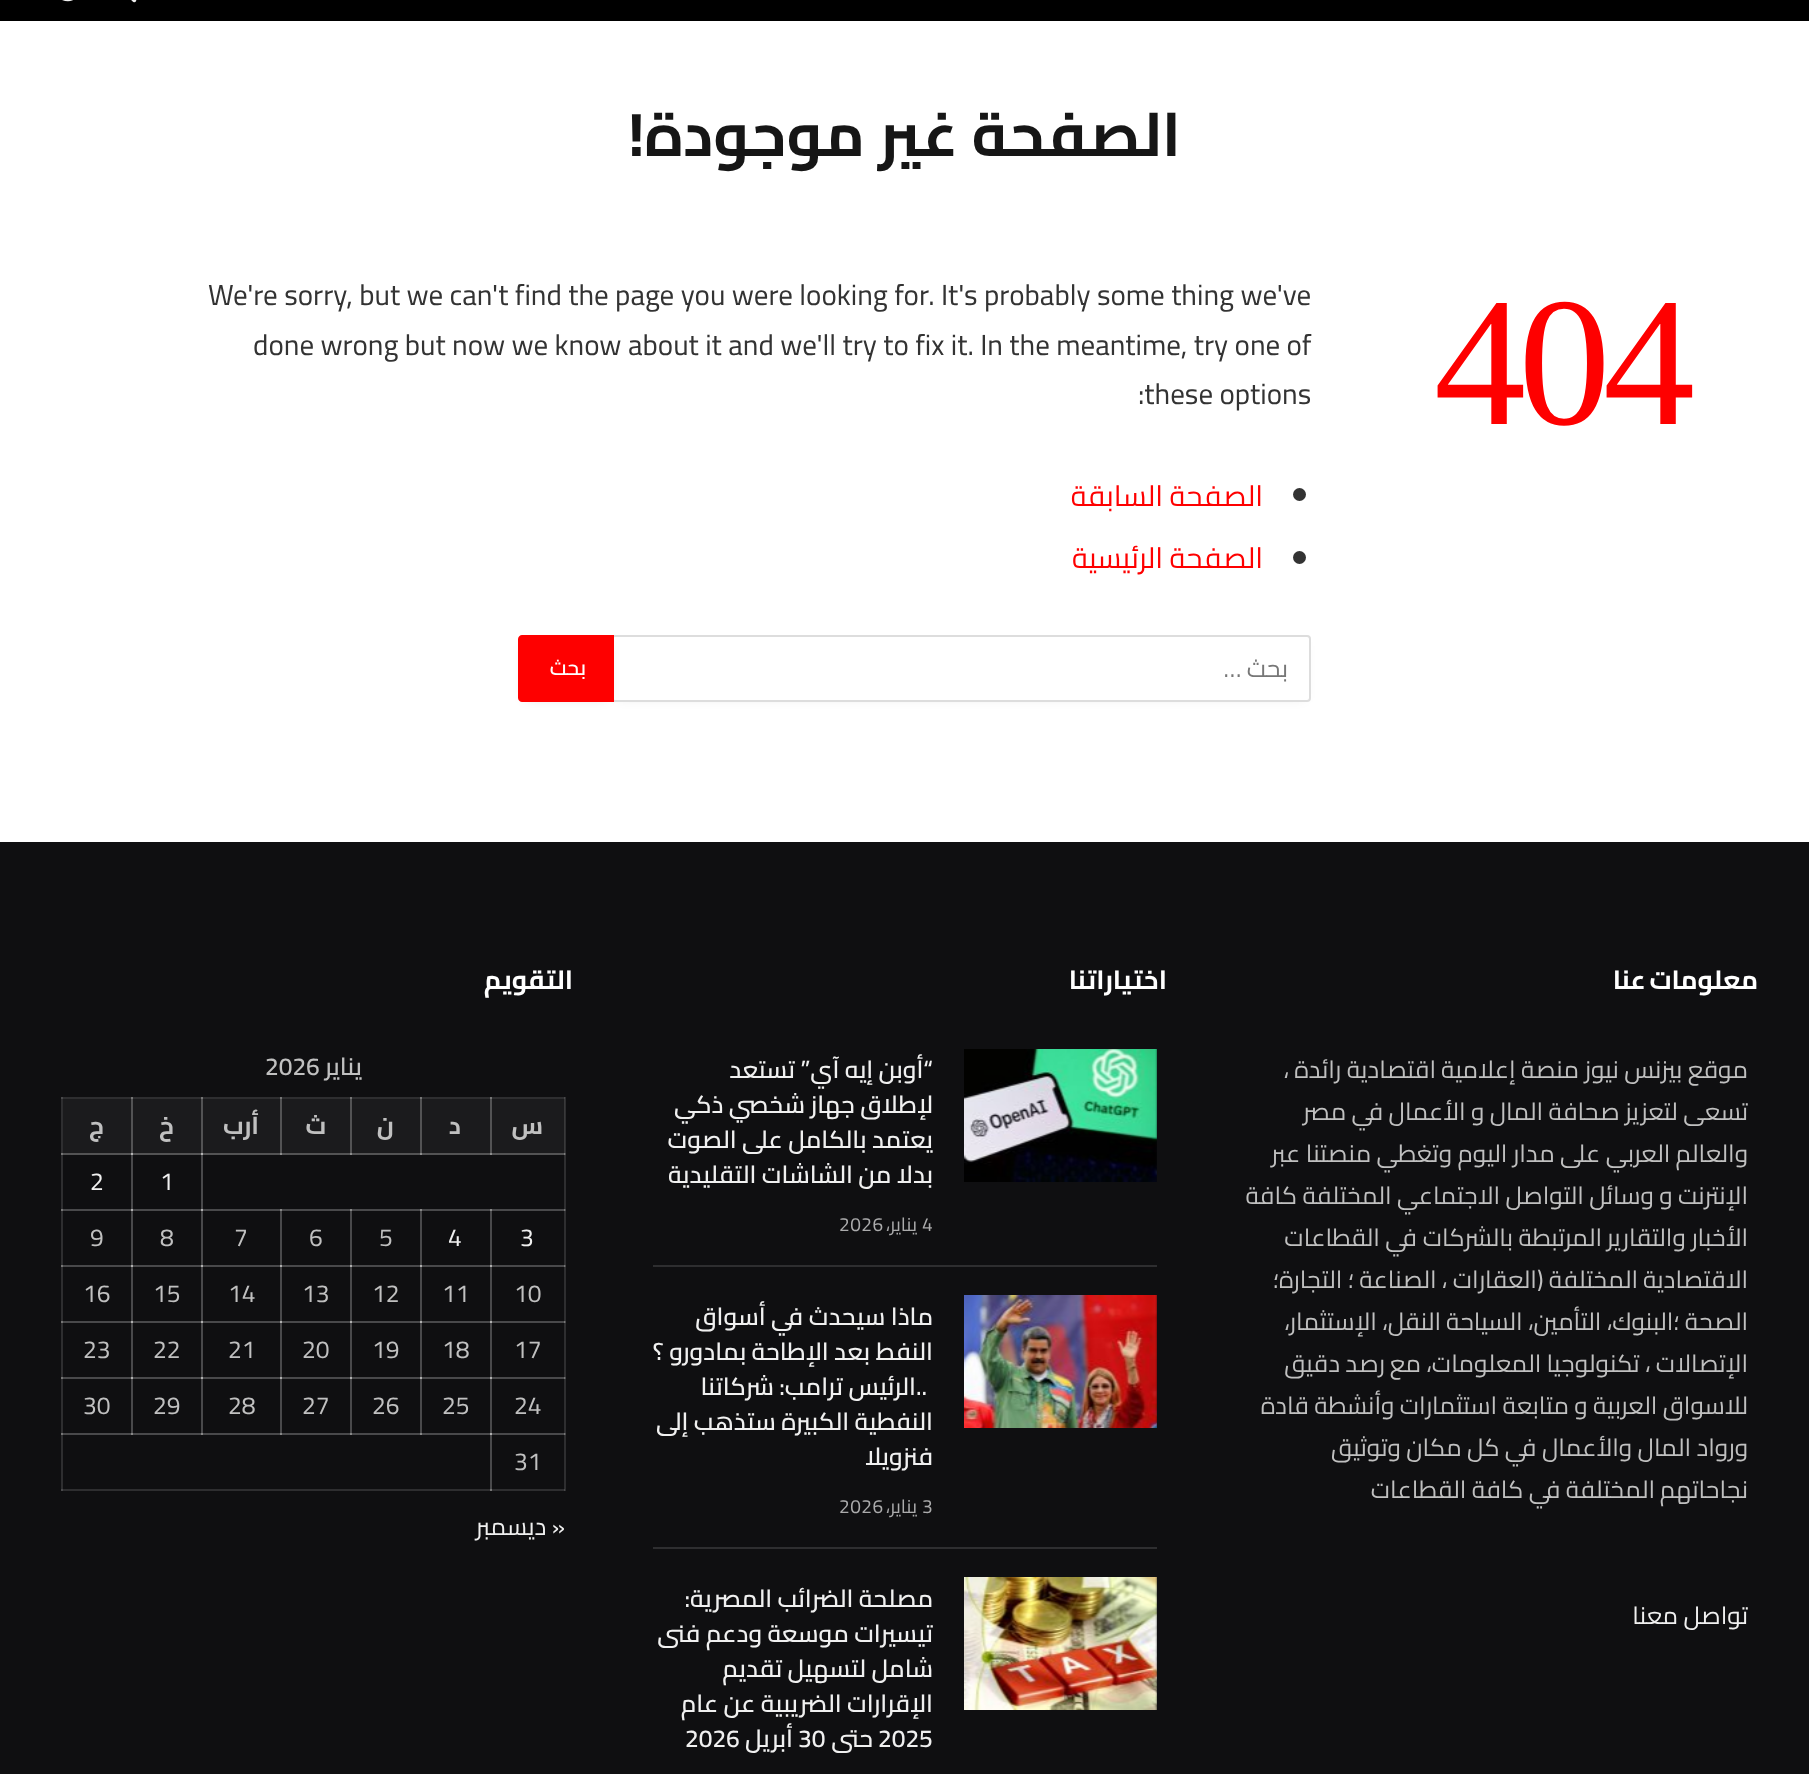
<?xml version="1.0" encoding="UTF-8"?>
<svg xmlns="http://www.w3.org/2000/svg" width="1809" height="1774">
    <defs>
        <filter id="blur1" x="-50%" y="-200%" width="200%" height="500%"><feGaussianBlur stdDeviation="6"/></filter>
    </defs>
    <rect width="100%" height="100%" fill="#FFFFFF"/>
    <rect x="0" y="0" width="1809" height="21" fill="#000000"/>
    <image x="131" y="0" width="6" height="3" href="img_01.png"/>
    <image x="62" y="0" width="11" height="2" href="img_02.png"/>
    <text x="1181" y="156" font-family="Cairo" font-size="61.25" font-weight="700" direction="rtl" fill="#161616">الصفحة غير موجودة!</text>
    <text x="1434" y="424" font-family="Liberation Serif" font-size="184" letter-spacing="-7.5" fill="#FE0000">404</text>
    <text x="208" y="305" font-family="Cairo" font-size="29.05" fill="#333333">We're sorry, but we can't find the page you were looking for. It's probably some thing we've</text>
    <text x="253" y="355" font-family="Cairo" font-size="29.05" fill="#333333">done wrong but now we know about it and we'll try to fix it. In the meantime, try one of</text>
    <text x="1138" y="404" font-family="Cairo" font-size="29.05" fill="#333333">:these options</text>
    <circle cx="1299.5" cy="494.5" r="6.5" fill="#333333"/>
    <text x="1263" y="506" font-family="Cairo" font-size="29.05" direction="rtl" fill="#FE0000">الصفحة السابقة</text>
    <circle cx="1299.5" cy="557.5" r="6.5" fill="#333333"/>
    <text x="1263" y="568" font-family="Cairo" font-size="29.05" direction="rtl" fill="#FE0000">الصفحة الرئيسية</text>
    <rect x="618" y="646" width="686" height="52" fill="#000000" fill-opacity="0.1" filter="url(#blur1)"/>
    <rect x="612" y="636" width="698" height="65" rx="3" fill="#FFFFFF" stroke="#DDDDDD" stroke-width="2"/>
    <text x="1288" y="677" font-family="Cairo" font-size="24.5" direction="rtl" fill="#777777">بحث …</text>
    <rect x="525" y="646" width="82" height="52" fill="#000000" fill-opacity="0.16" filter="url(#blur1)"/>
    <path d="M 522 635 H 614 V 702 H 522 C 520 702 518 700 518 698 V 639 C 518 637 520 635 522 635 Z" fill="#FE0000"/>
    <text x="586" y="675" font-family="Cairo" font-size="21" font-weight="600" letter-spacing="0.5" direction="rtl" fill="#FFFFFF">بحث</text>
    <rect x="0" y="842" width="1809" height="932" fill="#0F0F11"/>
    <rect x="565" y="1097" width="1" height="58" fill="#2E2E30"/>
    <rect x="131" y="1097" width="434" height="2" fill="#2E2E30"/>
    <rect x="564" y="1097" width="1" height="2" fill="#49494B"/>
    <rect x="490" y="1097" width="2" height="2" fill="#767676"/>
    <rect x="420" y="1097" width="2" height="2" fill="#767676"/>
    <rect x="350" y="1097" width="2" height="2" fill="#767676"/>
    <rect x="280" y="1097" width="2" height="2" fill="#767676"/>
    <rect x="201" y="1097" width="2" height="2" fill="#767676"/>
    <rect x="61" y="1097" width="2" height="394" fill="#2E2E30"/>
    <rect x="564" y="1153" width="2" height="282" fill="#2E2E30"/>
    <rect x="564" y="1153" width="2" height="2" fill="#49494B"/>
    <rect x="201" y="1153" width="2" height="58" fill="#49494B"/>
    <rect x="131" y="1153" width="2" height="58" fill="#49494B"/>
    <rect x="61" y="1153" width="2" height="2" fill="#767676"/>
    <rect x="490" y="1209" width="76" height="2" fill="#49494B"/>
    <rect x="564" y="1209" width="1" height="2" fill="#767676"/>
    <rect x="490" y="1209" width="2" height="58" fill="#49494B"/>
    <rect x="420" y="1209" width="72" height="2" fill="#49494B"/>
    <rect x="490" y="1209" width="2" height="2" fill="#888888"/>
    <rect x="420" y="1209" width="2" height="58" fill="#49494B"/>
    <rect x="350" y="1209" width="72" height="2" fill="#49494B"/>
    <rect x="420" y="1209" width="2" height="2" fill="#888888"/>
    <rect x="350" y="1209" width="2" height="58" fill="#49494B"/>
    <rect x="280" y="1209" width="72" height="2" fill="#49494B"/>
    <rect x="350" y="1209" width="2" height="2" fill="#888888"/>
    <rect x="280" y="1209" width="2" height="58" fill="#49494B"/>
    <rect x="201" y="1209" width="81" height="2" fill="#49494B"/>
    <rect x="280" y="1209" width="2" height="2" fill="#888888"/>
    <rect x="201" y="1209" width="2" height="58" fill="#49494B"/>
    <rect x="131" y="1209" width="72" height="2" fill="#49494B"/>
    <rect x="201" y="1209" width="2" height="2" fill="#B1B1B1"/>
    <rect x="131" y="1209" width="2" height="58" fill="#49494B"/>
    <rect x="490" y="1265" width="76" height="2" fill="#49494B"/>
    <rect x="564" y="1265" width="1" height="2" fill="#767676"/>
    <rect x="490" y="1265" width="2" height="58" fill="#49494B"/>
    <rect x="420" y="1265" width="72" height="2" fill="#49494B"/>
    <rect x="490" y="1265" width="2" height="2" fill="#B1B1B1"/>
    <rect x="420" y="1265" width="2" height="58" fill="#49494B"/>
    <rect x="350" y="1265" width="72" height="2" fill="#49494B"/>
    <rect x="420" y="1265" width="2" height="2" fill="#B1B1B1"/>
    <rect x="350" y="1265" width="2" height="58" fill="#49494B"/>
    <rect x="280" y="1265" width="72" height="2" fill="#49494B"/>
    <rect x="350" y="1265" width="2" height="2" fill="#B1B1B1"/>
    <rect x="280" y="1265" width="2" height="58" fill="#49494B"/>
    <rect x="201" y="1265" width="81" height="2" fill="#49494B"/>
    <rect x="280" y="1265" width="2" height="2" fill="#B1B1B1"/>
    <rect x="201" y="1265" width="2" height="58" fill="#49494B"/>
    <rect x="131" y="1265" width="72" height="2" fill="#49494B"/>
    <rect x="201" y="1265" width="2" height="2" fill="#B1B1B1"/>
    <rect x="131" y="1265" width="2" height="58" fill="#49494B"/>
    <rect x="490" y="1321" width="76" height="2" fill="#49494B"/>
    <rect x="564" y="1321" width="1" height="2" fill="#767676"/>
    <rect x="490" y="1321" width="2" height="58" fill="#49494B"/>
    <rect x="420" y="1321" width="72" height="2" fill="#49494B"/>
    <rect x="490" y="1321" width="2" height="2" fill="#B1B1B1"/>
    <rect x="420" y="1321" width="2" height="58" fill="#49494B"/>
    <rect x="350" y="1321" width="72" height="2" fill="#49494B"/>
    <rect x="420" y="1321" width="2" height="2" fill="#B1B1B1"/>
    <rect x="350" y="1321" width="2" height="58" fill="#49494B"/>
    <rect x="280" y="1321" width="72" height="2" fill="#49494B"/>
    <rect x="350" y="1321" width="2" height="2" fill="#B1B1B1"/>
    <rect x="280" y="1321" width="2" height="58" fill="#49494B"/>
    <rect x="201" y="1321" width="81" height="2" fill="#49494B"/>
    <rect x="280" y="1321" width="2" height="2" fill="#B1B1B1"/>
    <rect x="201" y="1321" width="2" height="58" fill="#49494B"/>
    <rect x="131" y="1321" width="72" height="2" fill="#49494B"/>
    <rect x="201" y="1321" width="2" height="2" fill="#B1B1B1"/>
    <rect x="131" y="1321" width="2" height="58" fill="#49494B"/>
    <rect x="490" y="1377" width="76" height="2" fill="#49494B"/>
    <rect x="564" y="1377" width="1" height="2" fill="#767676"/>
    <rect x="490" y="1377" width="2" height="58" fill="#49494B"/>
    <rect x="420" y="1377" width="72" height="2" fill="#49494B"/>
    <rect x="490" y="1377" width="2" height="2" fill="#B1B1B1"/>
    <rect x="420" y="1377" width="2" height="58" fill="#49494B"/>
    <rect x="350" y="1377" width="72" height="2" fill="#49494B"/>
    <rect x="420" y="1377" width="2" height="2" fill="#B1B1B1"/>
    <rect x="350" y="1377" width="2" height="58" fill="#49494B"/>
    <rect x="280" y="1377" width="72" height="2" fill="#49494B"/>
    <rect x="350" y="1377" width="2" height="2" fill="#B1B1B1"/>
    <rect x="280" y="1377" width="2" height="58" fill="#49494B"/>
    <rect x="201" y="1377" width="81" height="2" fill="#49494B"/>
    <rect x="280" y="1377" width="2" height="2" fill="#B1B1B1"/>
    <rect x="201" y="1377" width="2" height="58" fill="#49494B"/>
    <rect x="131" y="1377" width="72" height="2" fill="#49494B"/>
    <rect x="201" y="1377" width="2" height="2" fill="#B1B1B1"/>
    <rect x="131" y="1377" width="2" height="58" fill="#49494B"/>
    <rect x="61" y="1489" width="504" height="2" fill="#2E2E30"/>
    <rect x="564" y="1433" width="2" height="58" fill="#2E2E30"/>
    <rect x="490" y="1433" width="76" height="2" fill="#49494B"/>
    <rect x="564" y="1489" width="1" height="2" fill="#49494B"/>
    <rect x="564" y="1433" width="1" height="2" fill="#767676"/>
    <rect x="61" y="1489" width="2" height="2" fill="#49494B"/>
    <rect x="490" y="1433" width="2" height="58" fill="#49494B"/>
    <rect x="490" y="1489" width="2" height="2" fill="#767676"/>
    <text x="1758" y="989" word-spacing="-2" font-family="Cairo" font-size="26.25" font-weight="700" letter-spacing="1" direction="rtl" fill="#FFFFFF">معلومات عنا</text>
    <text x="1748" y="1078" font-family="Cairo" font-size="24.5" direction="rtl" fill="#C0C0C0">موقع بيزنس نيوز</text>
    <text x="1579" y="1078" font-family="Cairo" font-size="24.5" direction="rtl" fill="#C0C0C0">منصة إعلامية</text>
    <text x="1436" y="1078" font-family="Cairo" font-size="24.5" direction="rtl" fill="#C0C0C0">اقتصادية رائدة ،</text>
    <text font-family="Cairo" font-size="24.5" direction="rtl" fill="#C0C0C0">
        <tspan x="1748" y="1120">تسعى لتعزيز صحافة المال و الأعمال في مصر</tspan>
        <tspan x="1748" y="1162">والعالم العربي على مدار اليوم</tspan>
    </text>
    <text x="1452" y="1162" font-family="Cairo" font-size="24.5" direction="rtl" fill="#C0C0C0">وتغطي منصتنا عبر</text>
    <text font-family="Cairo" font-size="24.5" direction="rtl" fill="#C0C0C0">
        <tspan x="1748" y="1204">الإنترنت و وسائل التواصل الاجتماعي المختلفة كافة</tspan>
        <tspan x="1748" y="1246">الأخبار والتقارير</tspan>
    </text>
    <text x="1602" y="1246" font-family="Cairo" font-size="24.5" direction="rtl" fill="#C0C0C0">المرتبطة بالشركات</text>
    <text x="1417" y="1246" font-family="Cairo" font-size="24.5" direction="rtl" fill="#C0C0C0">في القطاعات</text>
    <text x="1748" y="1288" font-family="Cairo" font-size="24.5" direction="rtl" fill="#C0C0C0">الاقتصادية</text>
    <text x="1638" y="1288" font-family="Cairo" font-size="24.5" direction="rtl" fill="#C0C0C0">المختلفة (العقارات ، الصناعة ؛ التجارة؛</text>
    <text x="1748" y="1330" font-family="Cairo" font-size="24.5" direction="rtl" fill="#C0C0C0">الصحة ؛البنوك، التأمين، السياحة</text>
    <text x="1441" y="1330" font-family="Cairo" font-size="24.5" direction="rtl" fill="#C0C0C0">النقل، الإستثمار،</text>
    <text x="1748" y="1372" font-family="Cairo" font-size="24.5" direction="rtl" fill="#C0C0C0">الإتصالات ، تكنولوجيا المعلومات، مع</text>
    <text x="1385" y="1372" font-family="Cairo" font-size="24.5" direction="rtl" fill="#C0C0C0">رصد دقيق</text>
    <text x="1748" y="1414" font-family="Cairo" font-size="24.5" direction="rtl" fill="#C0C0C0">للاسواق العربية و متابعة استثمارات وأنشطة</text>
    <text x="1309" y="1414" font-family="Cairo" font-size="24.5" direction="rtl" fill="#C0C0C0">قادة</text>
    <text x="1748" y="1456" font-family="Cairo" font-size="24.5" direction="rtl" fill="#C0C0C0">ورواد</text>
    <text x="1691" y="1456" font-family="Cairo" font-size="24.5" direction="rtl" fill="#C0C0C0">المال والأعمال في كل مكان وتوثيق</text>
    <text x="1748" y="1498" font-family="Cairo" font-size="24.5" direction="rtl" fill="#C0C0C0">نجاحاتهم</text>
    <text x="1655" y="1498" font-family="Cairo" font-size="24.5" direction="rtl" fill="#C0C0C0">المختلفة في كافة القطاعات</text>
    <text x="1748" y="1624" font-family="Cairo" font-size="24.5" direction="rtl" fill="#F0F0F0">تواصل معنا</text>
    <text x="1167" y="989" font-family="Cairo" font-size="26.25" font-weight="700" letter-spacing="1" direction="rtl" fill="#FFFFFF">اختياراتنا</text>
    <image x="964" y="1049" width="193" height="133" href="img_03.png"/>
    <text font-family="Cairo" font-size="24.5" font-weight="600" direction="rtl" fill="#F0F0F0">
        <tspan x="933" y="1078">“أوبن إيه آي” تستعد</tspan>
        <tspan x="933" y="1113">لإطلاق جهاز شخصي ذكي</tspan>
        <tspan x="933" y="1148">يعتمد بالكامل على الصوت</tspan>
        <tspan x="933" y="1183">بدلا من الشاشات التقليدية</tspan>
    </text>
    <text x="922" y="1231" font-family="Cairo" font-size="19" letter-spacing="0.5" fill="#ABABAC">4</text>
    <text x="839" y="1231" font-family="Cairo" font-size="19" letter-spacing="0.5" fill="#ABABAC">2026</text>
    <text x="917" y="1231" font-family="Cairo" font-size="19" letter-spacing="0.5" direction="rtl" fill="#ABABAC">يناير،</text>
    <rect x="653" y="1265" width="504" height="2" fill="#2E2E30"/>
    <image x="964" y="1295" width="193" height="133" href="img_04.png"/>
    <text x="933" y="1325" font-family="Cairo" font-size="24.5" font-weight="600" direction="rtl" fill="#F0F0F0">ماذا سيحدث</text>
    <text x="803" y="1325" font-family="Cairo" font-size="24.5" font-weight="600" direction="rtl" fill="#F0F0F0">في أسواق</text>
    <text x="933" y="1360" font-family="Cairo" font-size="24.5" font-weight="600" direction="rtl" fill="#F0F0F0">النفط</text>
    <text x="870" y="1360" font-family="Cairo" font-size="24.5" font-weight="600" direction="rtl" fill="#F0F0F0">بعد الإطاحة بمادورو ؟</text>
    <text x="916" y="1395" font-family="Cairo" font-size="24.5" font-weight="600" fill="#F0F0F0">..</text>
    <text x="916" y="1395" font-family="Cairo" font-size="24.5" font-weight="600" direction="rtl" fill="#F0F0F0">الرئيس</text>
    <text x="843" y="1395" font-family="Cairo" font-size="24.5" font-weight="600" direction="rtl" fill="#F0F0F0">ترامب: شركاتنا</text>
    <text font-family="Cairo" font-size="24.5" font-weight="600" direction="rtl" fill="#F0F0F0">
        <tspan x="933" y="1430">النفطية الكبيرة ستذهب إلى</tspan>
        <tspan x="933" y="1465">فنزويلا</tspan>
    </text>
    <text x="922" y="1513" font-family="Cairo" font-size="19" letter-spacing="0.5" fill="#ABABAC">3</text>
    <text x="839" y="1513" font-family="Cairo" font-size="19" letter-spacing="0.5" fill="#ABABAC">2026</text>
    <text x="917" y="1513" font-family="Cairo" font-size="19" letter-spacing="0.5" direction="rtl" fill="#ABABAC">يناير،</text>
    <rect x="653" y="1547" width="504" height="2" fill="#2E2E30"/>
    <image x="964" y="1577" width="193" height="133" href="img_05.png"/>
    <text font-family="Cairo" font-size="24.5" font-weight="600" direction="rtl" fill="#F0F0F0">
        <tspan x="933" y="1607">مصلحة الضرائب المصرية:</tspan>
        <tspan x="933" y="1642">تيسيرات موسعة ودعم فنى</tspan>
        <tspan x="933" y="1677">شامل لتسهيل تقديم</tspan>
        <tspan x="933" y="1712">الإقرارات الضريبية عن عام</tspan>
    </text>
    <text x="878" y="1747" font-family="Cairo" font-size="24.5" font-weight="600" fill="#F0F0F0">2025</text>
    <text x="873" y="1747" font-family="Cairo" font-size="24.5" font-weight="600" direction="rtl" fill="#F0F0F0">حتى</text>
    <text x="798" y="1747" font-family="Cairo" font-size="24.5" font-weight="600" fill="#F0F0F0">30</text>
    <text x="793" y="1747" font-family="Cairo" font-size="24.5" font-weight="600" direction="rtl" fill="#F0F0F0">أبريل</text>
    <text x="685" y="1747" font-family="Cairo" font-size="24.5" font-weight="600" fill="#F0F0F0">2026</text>
    <text x="573" y="989" font-family="Cairo" font-size="26.25" font-weight="700" letter-spacing="1" direction="rtl" fill="#FFFFFF">التقويم</text>
    <text x="362" y="1075" font-family="Cairo" font-size="24.5" font-weight="600" direction="rtl" fill="#C0C0C0">يناير</text>
    <text x="265" y="1075" font-family="Cairo" font-size="24.5" font-weight="600" fill="#C0C0C0">2026</text>
    <rect x="492" y="1099" width="72" height="54" fill="#1B1B1D"/>
    <rect x="564" y="1099" width="1" height="56" fill="#39393A"/>
    <rect x="490" y="1099" width="2" height="56" fill="#535354"/>
    <rect x="490" y="1153" width="75" height="2" fill="#535354"/>
    <rect x="490" y="1153" width="2" height="2" fill="#8E8E8E"/>
    <rect x="564" y="1153" width="1" height="2" fill="#7D7D7D"/>
    <text x="543" y="1134" font-family="Cairo" font-size="24.5" font-weight="700" direction="rtl" fill="#C0C0C0">س</text>
    <rect x="422" y="1099" width="68" height="54" fill="#1B1B1D"/>
    <rect x="420" y="1099" width="2" height="56" fill="#535354"/>
    <rect x="420" y="1153" width="70" height="2" fill="#535354"/>
    <rect x="420" y="1153" width="2" height="2" fill="#8E8E8E"/>
    <text x="461" y="1134" font-family="Cairo" font-size="24.5" font-weight="700" direction="rtl" fill="#C0C0C0">د</text>
    <rect x="352" y="1099" width="68" height="54" fill="#1B1B1D"/>
    <rect x="350" y="1099" width="2" height="56" fill="#535354"/>
    <rect x="282" y="1153" width="138" height="2" fill="#535354"/>
    <rect x="350" y="1153" width="2" height="2" fill="#8E8E8E"/>
    <text x="394" y="1134" font-family="Cairo" font-size="24.5" font-weight="700" direction="rtl" fill="#C0C0C0">ن</text>
    <rect x="282" y="1099" width="68" height="54" fill="#1B1B1D"/>
    <text x="326" y="1134" font-family="Cairo" font-size="24.5" font-weight="700" direction="rtl" fill="#C0C0C0">ث</text>
    <rect x="203" y="1099" width="77" height="54" fill="#1B1B1D"/>
    <rect x="280" y="1099" width="2" height="56" fill="#535354"/>
    <rect x="201" y="1099" width="2" height="56" fill="#535354"/>
    <rect x="201" y="1153" width="81" height="2" fill="#535354"/>
    <rect x="280" y="1153" width="2" height="2" fill="#8E8E8E"/>
    <rect x="201" y="1153" width="2" height="2" fill="#B5B5B5"/>
    <text x="259" y="1134" font-family="Cairo" font-size="24.5" font-weight="700" direction="rtl" fill="#C0C0C0">أرب</text>
    <rect x="133" y="1099" width="68" height="54" fill="#1B1B1D"/>
    <rect x="131" y="1099" width="2" height="56" fill="#535354"/>
    <rect x="63" y="1153" width="138" height="2" fill="#535354"/>
    <rect x="131" y="1153" width="2" height="2" fill="#B5B5B5"/>
    <text x="174" y="1134" font-family="Cairo" font-size="24.5" font-weight="700" direction="rtl" fill="#C0C0C0">خ</text>
    <rect x="63" y="1099" width="68" height="54" fill="#1B1B1D"/>
    <rect x="61" y="1097" width="72" height="2" fill="#2E2E30"/>
    <rect x="61" y="1097" width="2" height="2" fill="#49494B"/>
    <rect x="131" y="1097" width="2" height="2" fill="#767676"/>
    <text x="104" y="1134" font-family="Cairo" font-size="24.5" font-weight="700" direction="rtl" fill="#C0C0C0">ج</text>
    <text x="160" y="1190" font-family="Cairo" font-size="24.5" fill="#F0F0F0">1</text>
    <text x="90" y="1190" font-family="Cairo" font-size="24.5" fill="#F0F0F0">2</text>
    <text x="520" y="1246" font-family="Cairo" font-size="24.5" fill="#F0F0F0">3</text>
    <text x="448" y="1246" font-family="Cairo" font-size="24.5" fill="#F0F0F0">4</text>
    <text x="379" y="1246" font-family="Cairo" font-size="24.5" fill="#C0C0C0">5</text>
    <text x="309" y="1246" font-family="Cairo" font-size="24.5" fill="#C0C0C0">6</text>
    <text x="234" y="1246" font-family="Cairo" font-size="24.5" fill="#C0C0C0">7</text>
    <text x="160" y="1246" font-family="Cairo" font-size="24.5" fill="#C0C0C0">8</text>
    <rect x="61" y="1209" width="72" height="2" fill="#49494B"/>
    <rect x="61" y="1209" width="2" height="2" fill="#767676"/>
    <rect x="131" y="1209" width="2" height="2" fill="#B1B1B1"/>
    <text x="90" y="1246" font-family="Cairo" font-size="24.5" fill="#C0C0C0">9</text>
    <text x="514" y="1302" font-family="Cairo" font-size="24.5" fill="#C0C0C0">10</text>
    <text x="442" y="1302" font-family="Cairo" font-size="24.5" fill="#C0C0C0">11</text>
    <text x="372" y="1302" font-family="Cairo" font-size="24.5" fill="#C0C0C0">12</text>
    <text x="302" y="1302" font-family="Cairo" font-size="24.5" fill="#C0C0C0">13</text>
    <text x="228" y="1302" font-family="Cairo" font-size="24.5" fill="#C0C0C0">14</text>
    <text x="153" y="1302" font-family="Cairo" font-size="24.5" fill="#C0C0C0">15</text>
    <rect x="61" y="1265" width="72" height="2" fill="#49494B"/>
    <rect x="61" y="1265" width="2" height="2" fill="#767676"/>
    <rect x="131" y="1265" width="2" height="2" fill="#B1B1B1"/>
    <text x="83" y="1302" font-family="Cairo" font-size="24.5" fill="#C0C0C0">16</text>
    <text x="514" y="1358" font-family="Cairo" font-size="24.5" fill="#C0C0C0">17</text>
    <text x="442" y="1358" font-family="Cairo" font-size="24.5" fill="#C0C0C0">18</text>
    <text x="372" y="1358" font-family="Cairo" font-size="24.5" fill="#C0C0C0">19</text>
    <text x="302" y="1358" font-family="Cairo" font-size="24.5" fill="#C0C0C0">20</text>
    <text x="228" y="1358" font-family="Cairo" font-size="24.5" fill="#C0C0C0">21</text>
    <text x="153" y="1358" font-family="Cairo" font-size="24.5" fill="#C0C0C0">22</text>
    <rect x="61" y="1321" width="72" height="2" fill="#49494B"/>
    <rect x="61" y="1321" width="2" height="2" fill="#767676"/>
    <rect x="131" y="1321" width="2" height="2" fill="#B1B1B1"/>
    <text x="83" y="1358" font-family="Cairo" font-size="24.5" fill="#C0C0C0">23</text>
    <text x="514" y="1414" font-family="Cairo" font-size="24.5" fill="#C0C0C0">24</text>
    <text x="442" y="1414" font-family="Cairo" font-size="24.5" fill="#C0C0C0">25</text>
    <text x="372" y="1414" font-family="Cairo" font-size="24.5" fill="#C0C0C0">26</text>
    <text x="302" y="1414" font-family="Cairo" font-size="24.5" fill="#C0C0C0">27</text>
    <text x="228" y="1414" font-family="Cairo" font-size="24.5" fill="#C0C0C0">28</text>
    <text x="153" y="1414" font-family="Cairo" font-size="24.5" fill="#C0C0C0">29</text>
    <rect x="61" y="1377" width="72" height="2" fill="#49494B"/>
    <rect x="61" y="1377" width="2" height="2" fill="#767676"/>
    <rect x="131" y="1377" width="2" height="2" fill="#B1B1B1"/>
    <text x="83" y="1414" font-family="Cairo" font-size="24.5" fill="#C0C0C0">30</text>
    <rect x="61" y="1433" width="431" height="2" fill="#49494B"/>
    <rect x="420" y="1433" width="2" height="2" fill="#888888"/>
    <rect x="350" y="1433" width="2" height="2" fill="#888888"/>
    <rect x="280" y="1433" width="2" height="2" fill="#888888"/>
    <rect x="201" y="1433" width="2" height="2" fill="#888888"/>
    <rect x="131" y="1433" width="2" height="2" fill="#888888"/>
    <rect x="61" y="1433" width="2" height="2" fill="#767676"/>
    <rect x="490" y="1433" width="2" height="2" fill="#B1B1B1"/>
    <text x="514" y="1470" font-family="Cairo" font-size="24.5" fill="#C0C0C0">31</text>
    <text x="565" y="1535" font-family="Cairo" font-size="24.5" direction="rtl" fill="#F0F0F0">« ديسمبر</text>
</svg>
